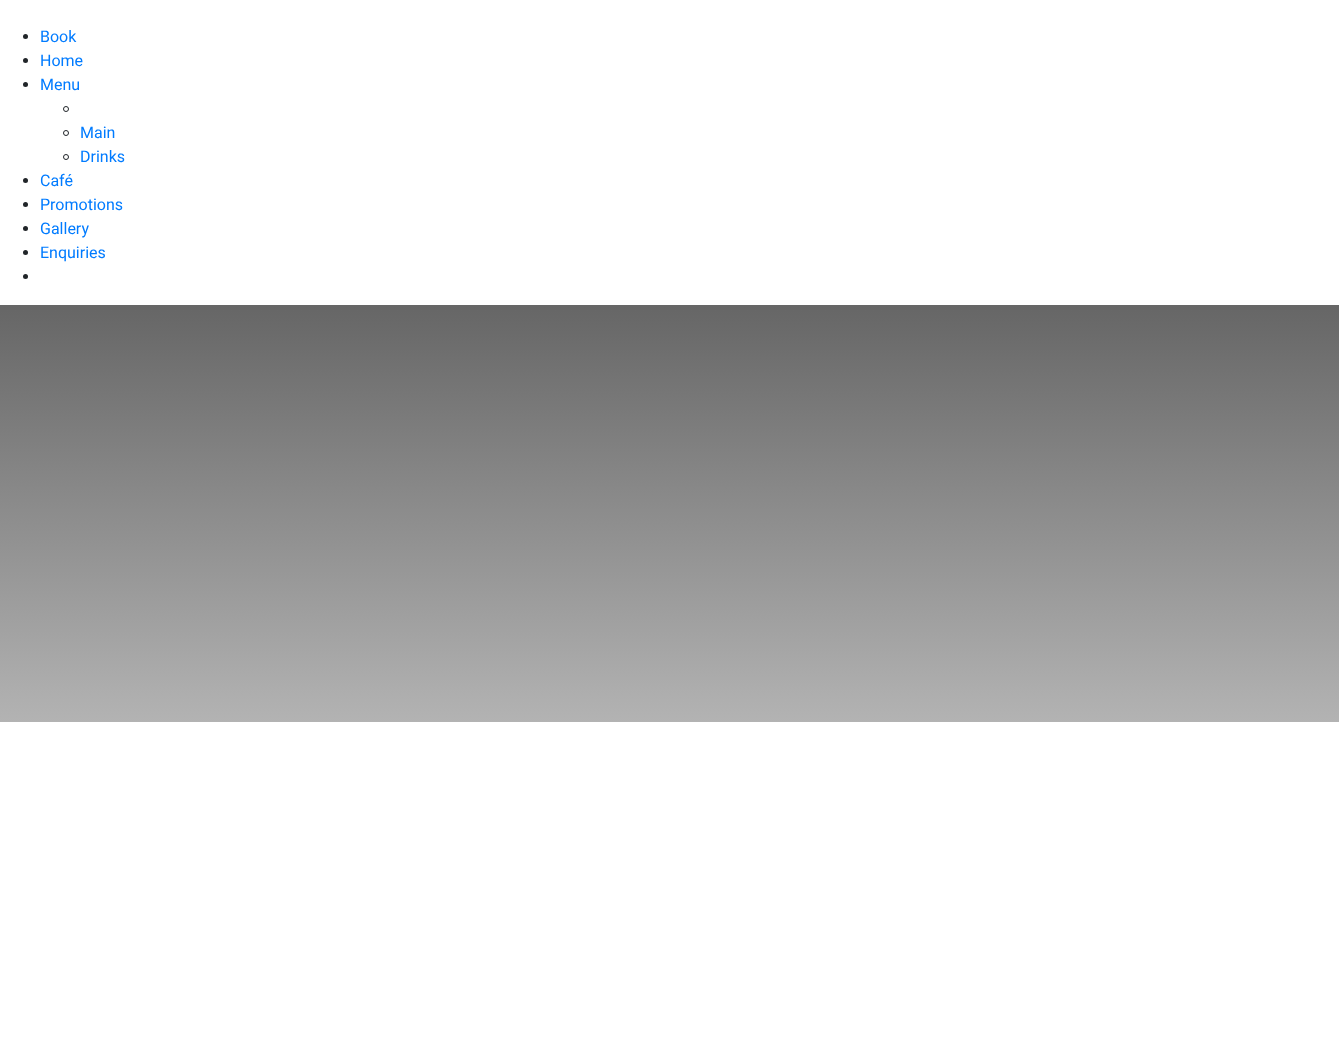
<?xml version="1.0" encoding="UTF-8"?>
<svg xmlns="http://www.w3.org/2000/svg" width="1339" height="1044">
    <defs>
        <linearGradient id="g1" gradientUnits="userSpaceOnUse" x1="670" y1="722" x2="670" y2="305"><stop offset="0" stop-color="#B3B3B3"/><stop offset="1" stop-color="#666666"/></linearGradient>
    </defs>
    <rect width="100%" height="100%" fill="#FFFFFF"/>
    <circle cx="25.5" cy="36.5" r="2.5" fill="#212529"/>
    <text x="40" y="42" font-family="Roboto" font-size="16" fill="#007BFF">Book</text>
    <circle cx="25.5" cy="60.5" r="2.5" fill="#212529"/>
    <text x="40" y="66" font-family="Roboto" font-size="16" fill="#007BFF">Home</text>
    <circle cx="25.5" cy="84.5" r="2.5" fill="#212529"/>
    <text x="40" y="90" font-family="Roboto" font-size="16" fill="#007BFF">Menu</text>
    <circle cx="66" cy="109" r="2.5" fill="none" stroke="#212529"/>
    <circle cx="66" cy="133" r="2.5" fill="none" stroke="#212529"/>
    <text x="80" y="138" font-family="Roboto" font-size="16" fill="#007BFF">Main</text>
    <circle cx="66" cy="157" r="2.5" fill="none" stroke="#212529"/>
    <text x="80" y="162" font-family="Roboto" font-size="16" fill="#007BFF">Drinks</text>
    <circle cx="25.5" cy="180.5" r="2.5" fill="#212529"/>
    <text x="40" y="186" font-family="Roboto" font-size="16" fill="#007BFF">Café</text>
    <circle cx="25.5" cy="204.5" r="2.5" fill="#212529"/>
    <text x="40" y="210" font-family="Roboto" font-size="16" fill="#007BFF">Promotions</text>
    <circle cx="25.5" cy="228.5" r="2.5" fill="#212529"/>
    <text x="40" y="234" font-family="Roboto" font-size="16" fill="#007BFF">Gallery</text>
    <circle cx="25.5" cy="252.5" r="2.5" fill="#212529"/>
    <text x="40" y="258" font-family="Roboto" font-size="16" fill="#007BFF">Enquiries</text>
    <circle cx="25.5" cy="276.5" r="2.5" fill="#212529"/>
    <rect x="0" y="305" width="1339" height="417" fill="url(#g1)"/>
</svg>
